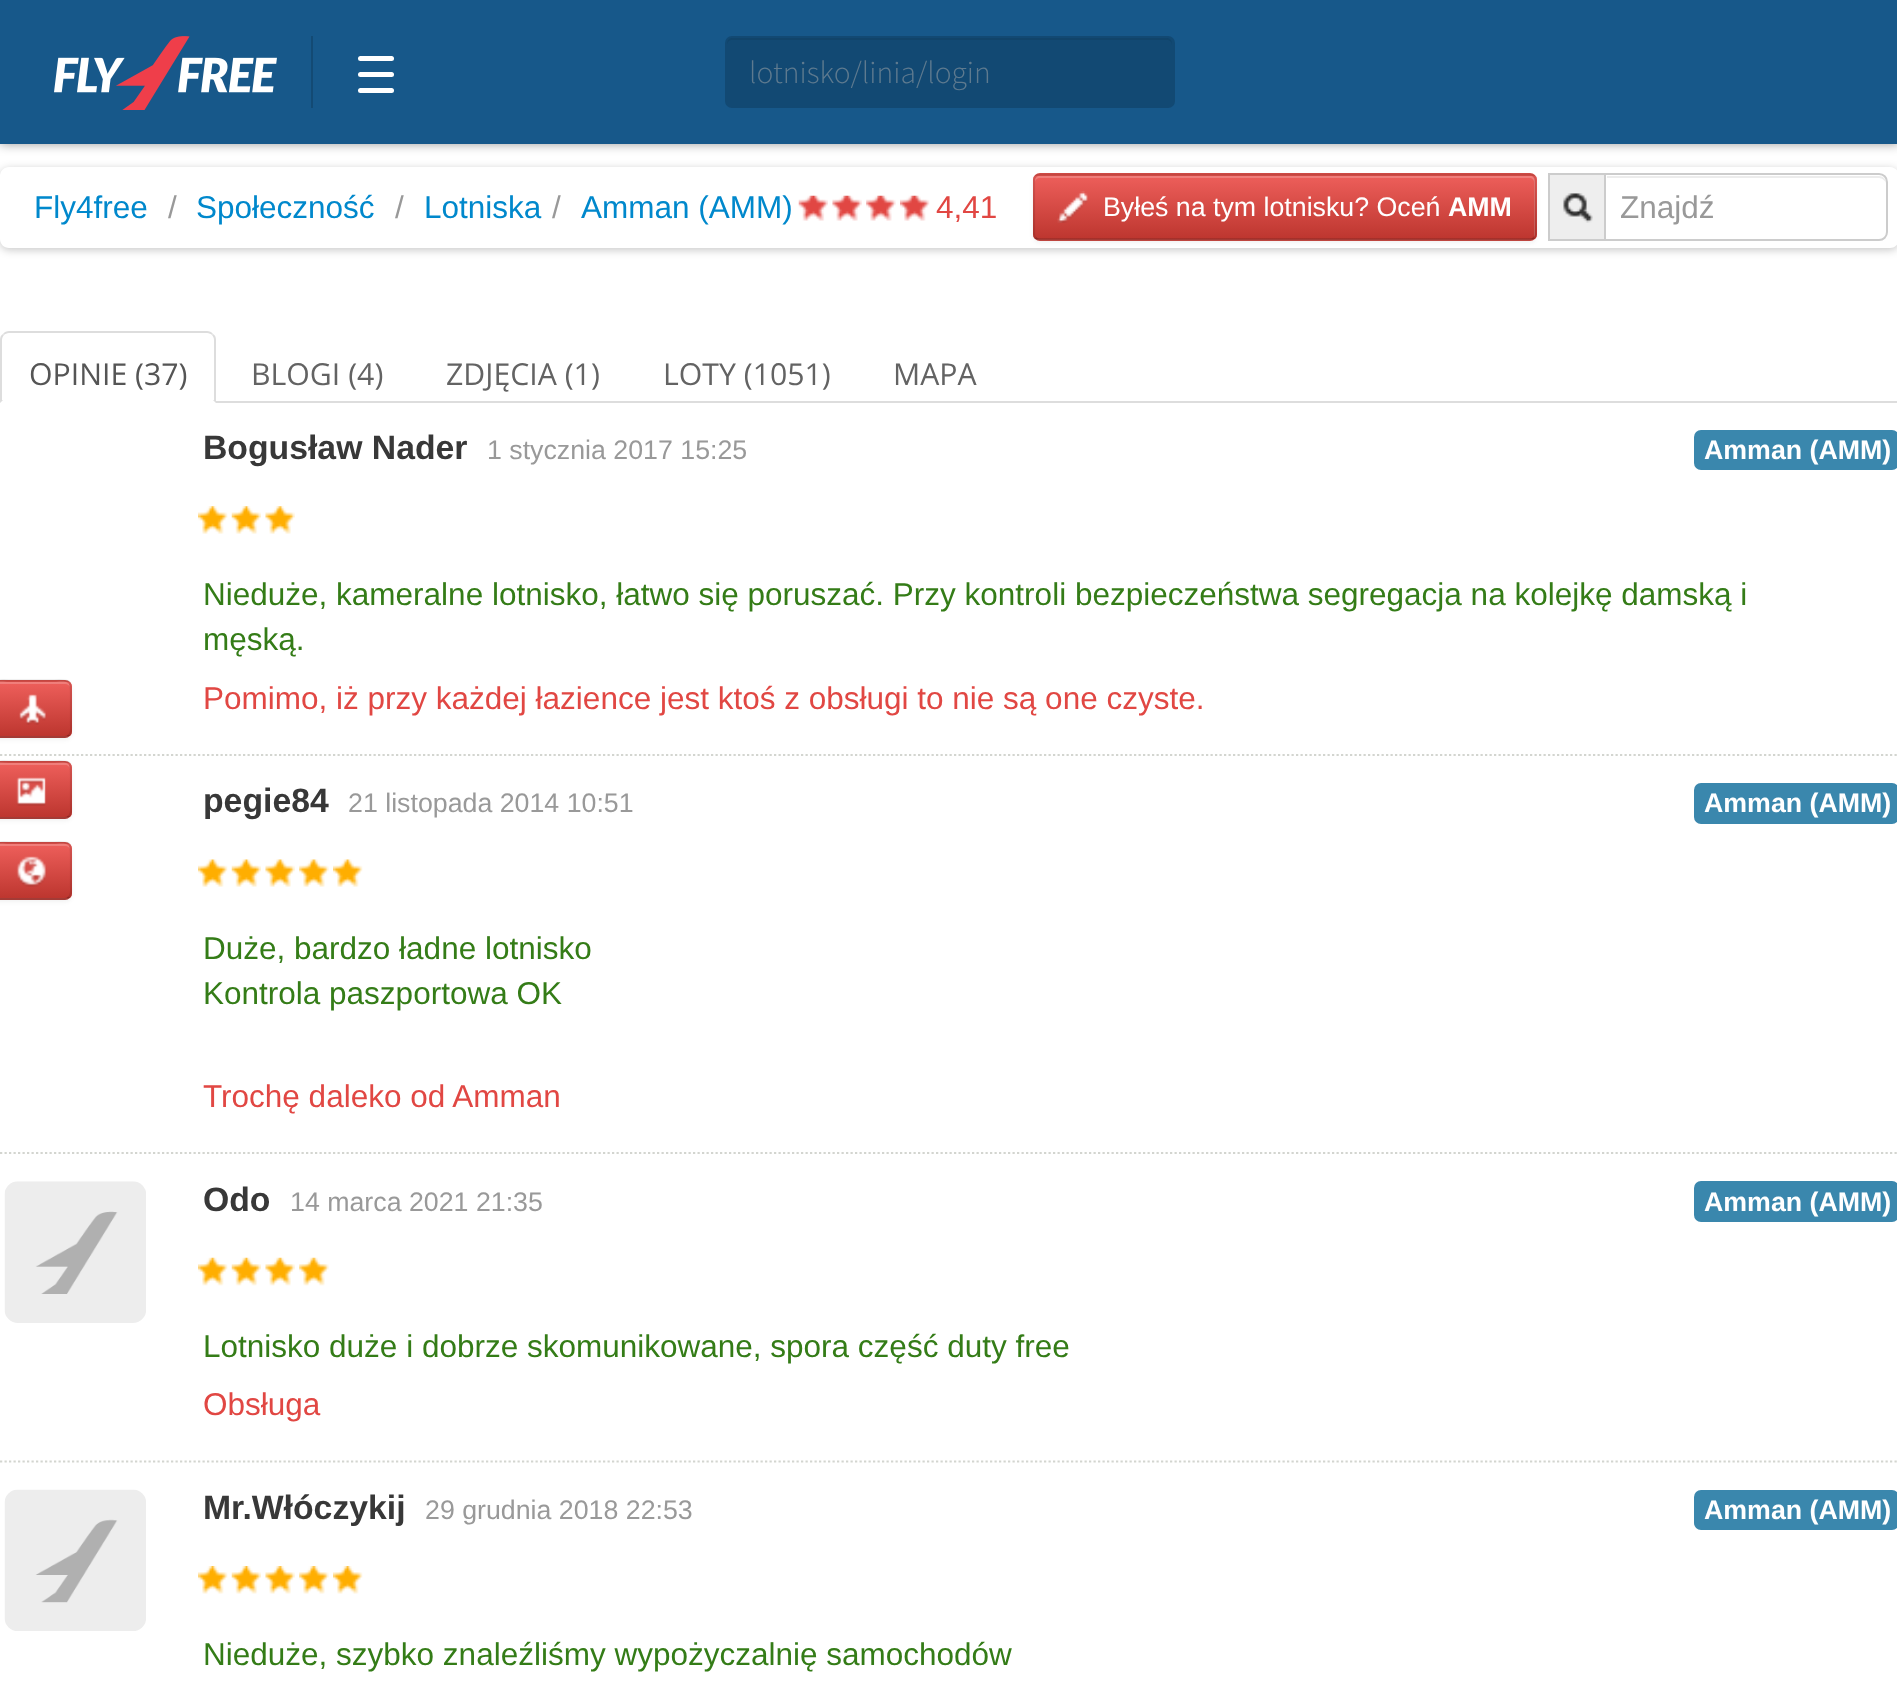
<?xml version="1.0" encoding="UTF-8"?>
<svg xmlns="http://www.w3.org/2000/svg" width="1897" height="1695">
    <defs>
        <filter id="blur1" x="-50%" y="-200%" width="200%" height="500%"><feGaussianBlur stdDeviation="5.5"/></filter>
        <clipPath id="clip1"><path d="M 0 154 H 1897 V 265 H 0 Z M 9 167 H 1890 C 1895 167 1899 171 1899 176 V 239 C 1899 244 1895 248 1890 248 H 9 C 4 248 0 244 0 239 V 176 C 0 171 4 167 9 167 Z" clip-rule="evenodd"/></clipPath>
        <filter id="blur2" x="-50%" y="-200%" width="200%" height="500%"><feGaussianBlur stdDeviation="4.5"/></filter>
        <filter id="blur3" x="-50%" y="-200%" width="200%" height="500%"><feGaussianBlur stdDeviation="2"/></filter>
        <clipPath id="clip2"><rect x="1033" y="173" width="504" height="68" rx="7"/></clipPath>
        <linearGradient id="g1" gradientUnits="userSpaceOnUse" x1="1285" y1="175" x2="1285" y2="239"><stop offset="0" stop-color="#EE5F5B"/><stop offset="1" stop-color="#BD362F"/></linearGradient>
        <clipPath id="clip3"><rect x="-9" y="680" width="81" height="58" rx="7"/></clipPath>
        <linearGradient id="g2" gradientUnits="userSpaceOnUse" x1="31" y1="682" x2="32" y2="736"><stop offset="0" stop-color="#EE5F5B"/><stop offset="1" stop-color="#BD362F"/></linearGradient>
        <clipPath id="clip4"><rect x="-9" y="761" width="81" height="58" rx="7"/></clipPath>
        <linearGradient id="g3" gradientUnits="userSpaceOnUse" x1="31" y1="763" x2="32" y2="817"><stop offset="0" stop-color="#EE5F5B"/><stop offset="1" stop-color="#BD362F"/></linearGradient>
        <clipPath id="clip5"><rect x="-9" y="842" width="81" height="58" rx="7"/></clipPath>
        <linearGradient id="g4" gradientUnits="userSpaceOnUse" x1="31" y1="844" x2="32" y2="898"><stop offset="0" stop-color="#EE5F5B"/><stop offset="1" stop-color="#BD362F"/></linearGradient>
    </defs>
    <rect width="100%" height="100%" fill="#FFFFFF"/>
    <rect x="0" y="0" width="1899" height="144" fill="#000000" fill-opacity="0.4" filter="url(#blur1)"/>
    <rect x="0" y="0" width="1897" height="144" fill="#17588A"/>
    <image x="54" y="36" width="223" height="74" href="img_01.png"/>
    <rect x="311" y="36" width="2" height="72" fill="#134A74"/>
    <rect x="358" y="88" width="36" height="5" rx="2.5" fill="#FFFFFF"/>
    <rect x="358" y="56" width="36" height="5" rx="2.5" fill="#FFFFFF"/>
    <rect x="358" y="72" width="36" height="5" rx="2.5" fill="#FFFFFF"/>
    <rect x="725" y="36" width="450" height="72" rx="7" fill="#124973"/>
    <path d="M 731 40 H 1168 C 1170 40 1172 43 1172 45 C 1172 42 1171 38 1167 38 H 732 C 728 38 727 42 727 45 C 727 43 729 40 731 40 Z" fill="#11446A"/>
    <text x="749" y="83" font-family="Source Sans Pro" font-size="31.5" font-weight="300" fill="#5E7A8F">lotnisko/linia/login</text>
    <g clip-path="url(#clip1)">
        <rect x="0" y="169" width="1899" height="81" rx="9" fill="#000000" fill-opacity="0.22" filter="url(#blur2)"/>
    </g>
    <text x="34" y="218" font-family="Liberation Sans" font-size="31.5" fill="#0088CC">Fly4free</text>
    <text x="168" y="218" font-family="Liberation Sans" font-size="31.5" fill="#999999">/</text>
    <text x="196" y="218" font-family="Liberation Sans" font-size="31.5" fill="#0088CC">Społeczność</text>
    <text x="395" y="218" font-family="Liberation Sans" font-size="31.5" fill="#999999">/</text>
    <text x="424" y="218" font-family="Liberation Sans" font-size="31.5" fill="#0088CC">Lotniska</text>
    <text x="552" y="218" font-family="Liberation Sans" font-size="31.5" fill="#999999">/</text>
    <text x="581" y="218" font-family="Liberation Sans" font-size="31.5" fill="#0088CC">Amman (AMM)</text>
    <image x="798" y="195" width="30" height="26" href="img_02.png"/>
    <image x="832" y="195" width="30" height="26" href="img_03.png"/>
    <image x="866" y="195" width="30" height="26" href="img_04.png"/>
    <image x="900" y="195" width="30" height="26" href="img_05.png"/>
    <text x="936" y="218" font-family="Liberation Sans" font-size="31.5" fill="#E14743">4,41</text>
    <rect x="1033" y="176" width="504" height="67" rx="7" fill="#000000" fill-opacity="0.05" filter="url(#blur3)"/>
    <rect x="1033" y="173" width="504" height="68" rx="7" fill="#DA4F49"/>
    <g clip-path="url(#clip2)">
        <rect x="1033" y="176" width="504" height="63" fill="url(#g1)"/>
    </g>
    <path d="M 1040 178 H 1530 C 1532 178 1534 180 1534 182 V 237 C 1535 236 1535 235 1535 234 V 181 C 1535 178 1533 176 1530 176 H 1040 C 1037 176 1035 178 1035 181 V 182 C 1035 180 1037 178 1040 178 Z" fill="#FFFFFF" fill-opacity="0.2"/>
    <path d="M 1534 238 C 1533 239 1531.5 239.5 1530 239.5 H 1039.5 C 1038 239.5 1036.5 239 1035.5 238" fill="none" stroke="#000000" stroke-opacity="0.25" stroke-width="2.2"/>
    <path d="M 1035.5 238 C 1034.5 237 1034 235.5 1034 234 V 180 C 1034 178.5 1034.5 177 1035.5 176 C 1036.5 175 1038 174.5 1039.5 174.5 H 1530 C 1531.5 174.5 1533 175 1534 176 C 1535 177 1535.5 178.5 1535.5 180 V 234 C 1535.5 235.5 1535 237 1534 238" fill="none" stroke="#000000" stroke-opacity="0.1" stroke-width="2.2"/>
    <image x="1057" y="191" width="31" height="32" href="img_06.png"/>
    <text x="1103" y="216" font-family="Liberation Sans" font-size="26.75" fill="#FFFFFF">Byłeś na tym lotnisku? Oceń</text>
    <text x="1448" y="216" font-family="Liberation Sans" font-size="26.75" font-weight="700" fill="#FFFFFF">AMM</text>
    <rect x="1550" y="175" width="54" height="64" fill="#EEEEEE"/>
    <rect x="1549" y="174" width="57" height="66" fill="none" stroke="#CCCCCC" stroke-width="2"/>
    <image x="1563" y="193" width="30" height="30" href="img_07.png"/>
    <path d="M 1604 173 H 1879 C 1884 173 1888 177 1888 182 V 232 C 1888 237 1884 241 1879 241 H 1604 Z" fill="#FFFFFF"/>
    <path d="M 1607 176 V 178 H 1879 C 1882 178 1886 181 1886 184 C 1886 180 1884 176 1879 176 Z" fill="#ECECEC"/>
    <path d="M 1605 174 H 1879 C 1883.5 174 1887 177.5 1887 182 V 232 C 1887 236.5 1883.5 240 1879 240 H 1605 Z" fill="none" stroke="#CCCCCC" stroke-width="2"/>
    <text x="1620" y="218" font-family="Liberation Sans" font-size="31.5" fill="#999999">Znajdź</text>
    <rect x="216" y="401" width="1681" height="2" fill="#DDDDDD"/>
    <path d="M 9 331 C 7 331 4 332 3 334 L 4 335 C 5 334 7 333 9 333 H 207 C 209 333 211 334 212 335 L 213 334 C 212 332 209 331 207 331 Z" fill="#DDDDDD"/>
    <path d="M 213 334 C 215 335 216 337 216 340 V 403 L 213 400 H 214 V 340 C 214 338 213 336 212 335 Z" fill="#DDDDDD"/>
    <path d="M 0 403 L 3 400 H 2 V 340 C 2 338 3 336 4 335 L 3 334 C 1 335 0 337 0 340 Z" fill="#DDDDDD"/>
    <text x="29" y="385" font-family="Open Sans" font-size="30.25" fill="#555555">OPINIE (37)</text>
    <text x="251" y="385" font-family="Open Sans" font-size="30.25" fill="#636363">BLOGI (4)</text>
    <text x="446" y="385" font-family="Open Sans" font-size="30.25" fill="#636363">ZDJĘCIA (1)</text>
    <text x="663" y="385" font-family="Open Sans" font-size="30.25" fill="#636363">LOTY (1051)</text>
    <text x="893" y="385" font-family="Open Sans" font-size="30.25" fill="#636363">MAPA</text>
    <path d="M 0 755 H 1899" fill="none" stroke="#D3D5D0" stroke-width="2.2" stroke-dasharray="2.25 2.25"/>
    <text x="203" y="459" font-family="Liberation Sans" font-size="33.75" font-weight="700" fill="#383838">Bogusław Nader</text>
    <text x="487" y="459" font-family="Liberation Sans" font-size="26.75" fill="#999999">1 stycznia 2017 15:25</text>
    <rect x="1694" y="430" width="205" height="40" rx="7" fill="#3A87AD"/>
    <text x="1704" y="459" font-family="Liberation Sans" font-size="26.75" font-weight="700" fill="#FFFFFF">Amman (AMM)</text>
    <image x="198" y="506" width="30" height="28" href="img_08.png"/>
    <image x="231" y="506" width="30" height="28" href="img_09.png"/>
    <image x="265" y="506" width="30" height="28" href="img_10.png"/>
    <text font-family="Liberation Sans" font-size="31.5" fill="#347C17">
        <tspan x="203" y="605">Nieduże, kameralne lotnisko, łatwo się poruszać. Przy kontroli bezpieczeństwa segregacja na kolejkę damską i</tspan>
        <tspan x="203" y="650">męską.</tspan>
    </text>
    <text x="203" y="709" font-family="Liberation Sans" font-size="31.5" fill="#E14743">Pomimo, iż przy każdej łazience jest ktoś z obsługi to nie są one czyste.</text>
    <path d="M 0 1153 H 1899" fill="none" stroke="#D3D5D0" stroke-width="2.2" stroke-dasharray="2.25 2.25"/>
    <text x="203" y="812" font-family="Liberation Sans" font-size="33.75" font-weight="700" fill="#383838">pegie84</text>
    <text x="348" y="812" font-family="Liberation Sans" font-size="26.75" fill="#999999">21 listopada 2014 10:51</text>
    <rect x="1694" y="783" width="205" height="41" rx="7" fill="#3A87AD"/>
    <text x="1704" y="812" font-family="Liberation Sans" font-size="26.75" font-weight="700" fill="#FFFFFF">Amman (AMM)</text>
    <image x="198" y="859" width="30" height="28" href="img_11.png"/>
    <image x="231" y="859" width="30" height="28" href="img_12.png"/>
    <image x="265" y="859" width="30" height="28" href="img_13.png"/>
    <image x="299" y="859" width="30" height="28" href="img_14.png"/>
    <image x="333" y="859" width="30" height="28" href="img_11.png"/>
    <text font-family="Liberation Sans" font-size="31.5" fill="#347C17">
        <tspan x="203" y="959">Duże, bardzo ładne lotnisko</tspan>
        <tspan x="203" y="1004">Kontrola paszportowa OK</tspan>
    </text>
    <text x="203" y="1107" font-family="Liberation Sans" font-size="31.5" fill="#E14743">Trochę daleko od Amman</text>
    <path d="M 0 1461.5 H 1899" fill="none" stroke="#D3D5D0" stroke-width="2.2" stroke-dasharray="2.25 2.25"/>
    <image x="4" y="1181" width="142" height="142" href="img_15.png"/>
    <text x="203" y="1211" font-family="Liberation Sans" font-size="33.75" font-weight="700" fill="#383838">Odo</text>
    <text x="290" y="1211" font-family="Liberation Sans" font-size="26.75" fill="#999999">14 marca 2021 21:35</text>
    <rect x="1694" y="1181" width="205" height="41" rx="7" fill="#3A87AD"/>
    <text x="1704" y="1211" font-family="Liberation Sans" font-size="26.75" font-weight="700" fill="#FFFFFF">Amman (AMM)</text>
    <image x="198" y="1257" width="30" height="29" href="img_16.png"/>
    <image x="231" y="1257" width="30" height="29" href="img_17.png"/>
    <image x="265" y="1257" width="30" height="29" href="img_18.png"/>
    <image x="299" y="1257" width="30" height="29" href="img_19.png"/>
    <text x="203" y="1357" font-family="Liberation Sans" font-size="31.5" fill="#347C17">Lotnisko duże i dobrze skomunikowane, spora część duty free</text>
    <text x="203" y="1415" font-family="Liberation Sans" font-size="31.5" fill="#E14743">Obsługa</text>
    <image x="4" y="1489" width="142" height="142" href="img_20.png"/>
    <text x="203" y="1519" font-family="Liberation Sans" font-size="33.75" font-weight="700" fill="#383838">Mr.Włóczykij</text>
    <text x="425" y="1519" font-family="Liberation Sans" font-size="26.75" fill="#999999">29 grudnia 2018 22:53</text>
    <rect x="1694" y="1490" width="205" height="40" rx="7" fill="#3A87AD"/>
    <text x="1704" y="1519" font-family="Liberation Sans" font-size="26.75" font-weight="700" fill="#FFFFFF">Amman (AMM)</text>
    <image x="198" y="1566" width="30" height="28" href="img_21.png"/>
    <image x="231" y="1566" width="30" height="28" href="img_22.png"/>
    <image x="265" y="1566" width="30" height="28" href="img_23.png"/>
    <image x="299" y="1566" width="30" height="28" href="img_24.png"/>
    <image x="333" y="1566" width="30" height="28" href="img_21.png"/>
    <text x="203" y="1665" font-family="Liberation Sans" font-size="31.5" fill="#347C17">Nieduże, szybko znaleźliśmy wypożyczalnię samochodów</text>
    <rect x="-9" y="682" width="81" height="58" rx="7" fill="#000000" fill-opacity="0.05" filter="url(#blur3)"/>
    <rect x="-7" y="680" width="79" height="58" rx="7" fill="#DA4F49"/>
    <g clip-path="url(#clip3)">
        <rect x="0" y="682" width="72" height="54" fill="url(#g2)"/>
    </g>
    <path d="M -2 684 H 65 C 68 684 70 686 70 688 C 70 679 60 682 54 682 H 9 C 3 682 -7 679 -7 688 C -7 686 -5 684 -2 684 Z" fill="#FFFFFF" fill-opacity="0.2"/>
    <path d="M 69 735 C 68 736.5 66.5 737 65 737 H -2 C -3.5 737 -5 736.5 -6 735" fill="none" stroke="#000000" stroke-opacity="0.25" stroke-width="2.2"/>
    <path d="M -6 735 C -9 732.5 -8 727 -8 724 V 694 C -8 678.5 -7 680.5 9 680.5 H 54 C 70 680.5 71 678.5 71 694 V 724 C 71 727 72 732.5 69 735" fill="none" stroke="#000000" stroke-opacity="0.1" stroke-width="2.2"/>
    <image x="19" y="694" width="27" height="31" href="img_25.png"/>
    <rect x="-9" y="763" width="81" height="58" rx="7" fill="#000000" fill-opacity="0.05" filter="url(#blur3)"/>
    <rect x="-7" y="761" width="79" height="58" rx="7" fill="#DA4F49"/>
    <g clip-path="url(#clip4)">
        <rect x="0" y="763" width="72" height="54" fill="url(#g3)"/>
    </g>
    <path d="M -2 765 H 65 C 68 765 70 767 70 770 C 70 760 62 763 54 763 H 9 C 1 763 -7 760 -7 770 C -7 767 -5 765 -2 765 Z" fill="#FFFFFF" fill-opacity="0.2"/>
    <path d="M 69 816 C 68 817.5 66.5 818 65 818 H -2 C -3.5 818 -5 817.5 -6 816" fill="none" stroke="#000000" stroke-opacity="0.25" stroke-width="2.2"/>
    <path d="M -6 816 C -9 813.5 -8 808 -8 805 V 775 C -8 759.5 -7 761.5 9 761.5 H 54 C 70 761.5 71 759.5 71 775 V 805 C 71 808 72 813.5 69 816" fill="none" stroke="#000000" stroke-opacity="0.1" stroke-width="2.2"/>
    <image x="16" y="777" width="30" height="29" href="img_26.png"/>
    <rect x="-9" y="844" width="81" height="58" rx="7" fill="#000000" fill-opacity="0.05" filter="url(#blur3)"/>
    <rect x="-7" y="842" width="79" height="58" rx="7" fill="#DA4F49"/>
    <g clip-path="url(#clip5)">
        <rect x="0" y="844" width="72" height="54" fill="url(#g4)"/>
    </g>
    <path d="M -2 846 H 65 C 68 846 70 848 70 850 C 70 841 60 844 54 844 H 9 C 3 844 -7 841 -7 850 C -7 848 -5 846 -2 846 Z" fill="#FFFFFF" fill-opacity="0.2"/>
    <path d="M 69 897 C 68 898.5 66.5 899 65 899 H -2 C -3.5 899 -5 898.5 -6 897" fill="none" stroke="#000000" stroke-opacity="0.25" stroke-width="2.2"/>
    <path d="M -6 897 C -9 894.5 -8 889 -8 886 V 856 C -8 840.5 -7 842.5 9 842.5 H 54 C 70 842.5 71 840.5 71 856 V 886 C 71 889 72 894.5 69 897" fill="none" stroke="#000000" stroke-opacity="0.1" stroke-width="2.2"/>
    <image x="16" y="856" width="30" height="31" href="img_27.png"/>
</svg>
